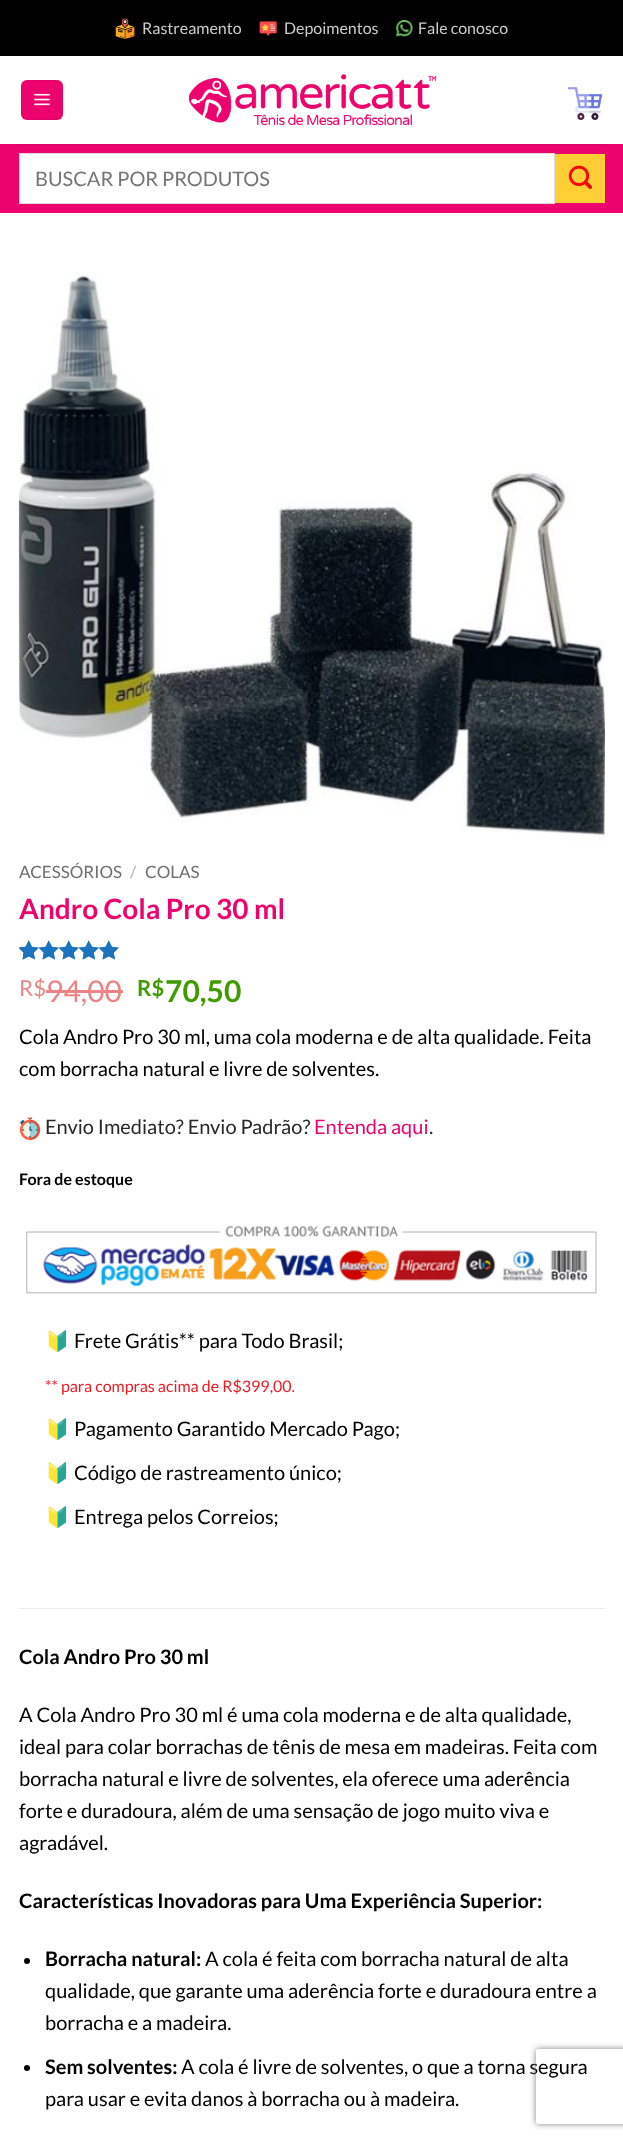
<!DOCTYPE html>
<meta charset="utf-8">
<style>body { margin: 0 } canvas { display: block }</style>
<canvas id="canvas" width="623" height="2141"></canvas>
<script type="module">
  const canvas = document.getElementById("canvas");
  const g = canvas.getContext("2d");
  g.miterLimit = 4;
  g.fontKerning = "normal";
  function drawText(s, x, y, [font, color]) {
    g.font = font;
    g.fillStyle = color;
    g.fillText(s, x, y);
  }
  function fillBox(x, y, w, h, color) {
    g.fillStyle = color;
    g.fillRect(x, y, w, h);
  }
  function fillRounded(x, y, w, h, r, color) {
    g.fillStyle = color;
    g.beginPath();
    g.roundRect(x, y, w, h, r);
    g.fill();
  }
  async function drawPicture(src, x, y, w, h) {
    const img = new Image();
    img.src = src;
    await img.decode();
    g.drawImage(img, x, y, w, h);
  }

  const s1 = ["16px Lato", "#CCCCCC"];
  const s2 = ["20px Lato", "#757575"];
  const s3 = ["17px Lato", "#6E6E6E"];
  const s4 = ["17px Lato", "#B2B2B2"];
  const s5 = ["bold 28px Lato", "#ED036E"];
  const s6 = ["22px Lato", "#EB8585"];
  const s7 = ["30px Lato", "#EB8585"];
  const s8 = ["bold 22px Lato", "#429A03"];
  const s9 = ["bold 30px Lato", "#429A03"];
  const s10 = ["20px Lato", "#000000"];
  const s11 = ["20px Lato", "#282828"];
  const s12 = ["20px Lato", "#ED036E"];
  const s13 = ["bold 16px Lato", "#000000"];
  const s14 = ["20px Noto Color Emoji", "#000000"];
  const s15 = ["16px Lato", "#ED1C24"];
  const s16 = ["bold 20px Lato", "#000000"];

  fillBox(0, 0, 623, 2141, "#FFFFFF");
  fillBox(0, 0, 623, 56, "#000000");
  await drawPicture("pic1.png", 115, 18, 20, 21);
  drawText("Rastreamento", 142, 34, s1);
  await drawPicture("pic2.png", 259, 21, 18, 15);
  drawText("Depoimentos", 284, 34, s1);
  await drawPicture("pic3.png", 396, 20, 17, 17);
  drawText("Fale conosco", 418, 34, s1);
  fillRounded(21, 80, 42, 40, 6, "#ED036E");
  g.strokeStyle = "rgba(0, 0, 0, 0.05)";
  g.strokeRect(21.5, 80.5, 41, 39);
  await drawPicture("pic4.png", 34, 93, 17, 13);
  await drawPicture("pic5.png", 188, 74, 249, 51);
  await drawPicture("pic6.png", 567, 85, 36, 35);
  fillBox(0, 144, 623, 69, "#ED036E");
  fillBox(19, 144, 586, 1, "#D50363");
  g.fillStyle = "#FFFFFF";
  g.beginPath();
  g.rect(19.5, 153.5, 535, 50);
  g.fill();
  g.strokeStyle = "#DDDDDD";
  g.stroke();
  drawText("BUSCAR POR PRODUTOS", 35, 186, s2);
  fillBox(555, 154, 50, 49, "#FFCF35");
  await drawPicture("pic7.png", 568, 165, 24, 24);
  await drawPicture("pic8.png", 18, 272, 587, 570);
  drawText("ACESSÓRIOS", 19, 878, s3);
  drawText("/", 130, 878, s4);
  drawText("COLAS", 145, 878, s3);
  drawText("Andro Cola Pro 30 ml", 19, 919, s5);
  await drawPicture("pic9.png", 19, 940, 100, 20);
  await drawPicture("pic10.png", 19, 940, 100, 20);
  await drawPicture("pic11.png", 19, 940, 12, 20);
  drawText("R$", 19, 996, s6);
  drawText("94,00", 46, 1002, s7);
  fillBox(46, 990, 77, 3, "#EB8585");
  drawText("R$", 137, 996, s8);
  drawText("70,50", 165, 1002, s9);
  drawText("Cola Andro Pro 30 ml, uma cola moderna e de alta qualidade. Feita", 19, 1044, s10);
  drawText("com borracha natural e livre de solventes.", 19, 1076, s10);
  await drawPicture("pic12.png", 19, 1117, 22, 23);
  drawText("Envio Imediato? Envio Padrão?", 45, 1134, s11);
  drawText("Entenda aqui", 314, 1134, s12);
  drawText(".", 429, 1134, s11);
  drawText("Fora de estoque", 19, 1185, s13);
  await drawPicture("pic13.png", 26, 1226, 571, 68);
  drawText("🔰", 45, 1348, s14);
  drawText("Frete Grátis** para Todo Brasil;", 74, 1348, s10);
  drawText("** para compras acima de R$399,00.", 45, 1392, s15);
  drawText("🔰", 45, 1436, s14);
  drawText("Pagamento Garantido Mercado Pago;", 74, 1436, s10);
  drawText("🔰", 45, 1480, s14);
  drawText("Código de rastreamento único;", 74, 1480, s10);
  drawText("🔰", 45, 1524, s14);
  drawText("Entrega pelos Correios;", 74, 1524, s10);
  fillBox(19, 1608, 586, 1, "#ECECEC");
  drawText("Cola Andro Pro 30 ml", 19, 1664, s16);
  drawText("A Cola Andro Pro 30 ml é uma cola moderna e de alta qualidade,", 19, 1722, s10);
  drawText("ideal para colar borrachas de tênis de mesa em madeiras. Feita com", 19, 1754, s10);
  drawText("borracha natural e livre de solventes, ela oferece uma aderência", 19, 1786, s10);
  drawText("forte e duradoura, além de uma sensação de jogo muito viva e", 19, 1818, s10);
  drawText("agradável.", 19, 1850, s10);
  drawText("Características Inovadoras para Uma Experiência Superior:", 19, 1908, s16);
  g.beginPath();
  g.arc(27, 1961, 3, 0, Math.PI * 2);
  g.fill();
  drawText("Borracha natural:", 45, 1966, s16);
  drawText("A cola é feita com borracha natural de alta", 205, 1966, s10);
  drawText("qualidade, que garante uma aderência forte e duradoura entre a", 45, 1998, s10);
  drawText("borracha e a madeira.", 45, 2030, s10);
  g.beginPath();
  g.arc(27, 2068, 3, 0, Math.PI * 2);
  g.fill();
  drawText("Sem solventes:", 45, 2074, s16);
  drawText("A cola é livre de solventes, o que a torna segura", 181, 2074, s10);
  drawText("para usar e evita danos à borracha ou à madeira.", 45, 2106, s10);
  g.save();
  g.beginPath();
  g.moveTo(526, 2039);
  g.lineTo(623, 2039);
  g.lineTo(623, 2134);
  g.lineTo(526, 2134);
  g.closePath();
  g.moveTo(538.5, 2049);
  g.lineTo(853.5, 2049);
  g.bezierCurveTo(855, 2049, 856, 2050, 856, 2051.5);
  g.lineTo(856, 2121.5);
  g.bezierCurveTo(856, 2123, 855, 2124, 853.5, 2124);
  g.lineTo(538.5, 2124);
  g.bezierCurveTo(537, 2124, 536, 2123, 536, 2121.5);
  g.lineTo(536, 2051.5);
  g.bezierCurveTo(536, 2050, 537, 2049, 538.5, 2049);
  g.closePath();
  g.clip("evenodd");
  g.fillStyle = "#808080";
  g.filter = "blur(3px)";
  g.beginPath();
  g.roundRect(536, 2049, 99, 75, 2.5);
  g.fill();
  g.filter = "none";
  g.restore();
</script>
